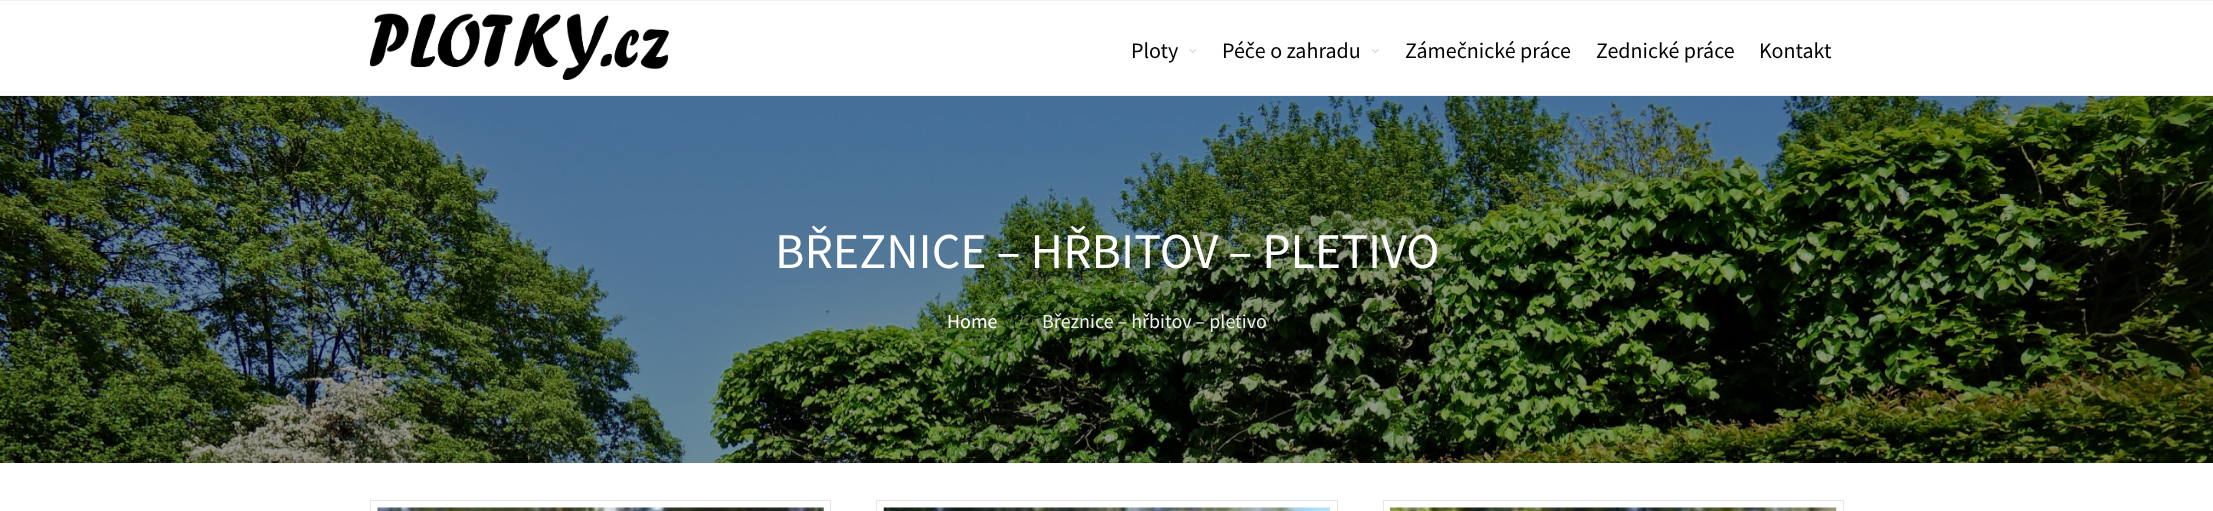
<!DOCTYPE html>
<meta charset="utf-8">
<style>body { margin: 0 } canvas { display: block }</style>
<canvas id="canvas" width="2213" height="511"></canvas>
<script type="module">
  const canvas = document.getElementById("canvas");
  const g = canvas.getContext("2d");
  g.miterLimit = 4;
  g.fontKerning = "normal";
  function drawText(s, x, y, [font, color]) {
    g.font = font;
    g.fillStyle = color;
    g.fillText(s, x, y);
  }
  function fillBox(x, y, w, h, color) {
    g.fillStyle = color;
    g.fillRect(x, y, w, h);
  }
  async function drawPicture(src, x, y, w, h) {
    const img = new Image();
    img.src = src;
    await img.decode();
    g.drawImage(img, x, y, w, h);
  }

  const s1 = ["22px Source Sans Pro", "#000000"];
  const s2 = ["50px Source Sans Pro", "#FFFFFF"];
  const s3 = ["20px Source Sans Pro", "#FFFFFF"];
  const s4 = ["bold 15px Liberation Serif", "#88967A"];
  const s5 = ["20px Source Sans Pro", "#EEEEEE"];

  fillBox(0, 0, 2213, 511, "#FFFFFF");
  await drawPicture("pic1.png", 0, 96, 2213, 367);
  fillBox(0, 0, 2213, 1, "#F0F0F0");
  fillBox(0, 95, 2213, 1, "#F0F0F0");
  await drawPicture("pic2.png", 370, 13, 299, 67);
  drawText("Ploty", 1131, 58, s1);
  await drawPicture("pic3.png", 1189, 49, 8, 4);
  drawText("Péče o zahradu", 1222, 58, s1);
  await drawPicture("pic4.png", 1372, 49, 7, 4);
  drawText("Zámečnické práce", 1405, 58, s1);
  drawText("Zednické práce", 1596, 58, s1);
  drawText("Kontakt", 1759, 58, s1);
  fillBox(0, 96, 2213, 367, "rgba(0, 0, 0, 0.4)");
  drawText("BŘEZNICE – HŘBITOV – PLETIVO", 775, 268, s2);
  drawText("Home", 947, 328, s3);
  drawText("/", 1019, 326, s4);
  drawText("Březnice – hřbitov – pletivo", 1042, 328, s5);
  g.strokeStyle = "#E6E6E6";
  g.strokeRect(370.5, 500.5, 460, 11);
  await drawPicture("pic5.png", 377, 507, 447, 4);
  g.strokeRect(876.5, 500.5, 461, 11);
  await drawPicture("pic6.png", 883, 507, 447, 4);
  g.strokeRect(1383.5, 500.5, 460, 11);
  await drawPicture("pic7.png", 1390, 507, 447, 4);
</script>
